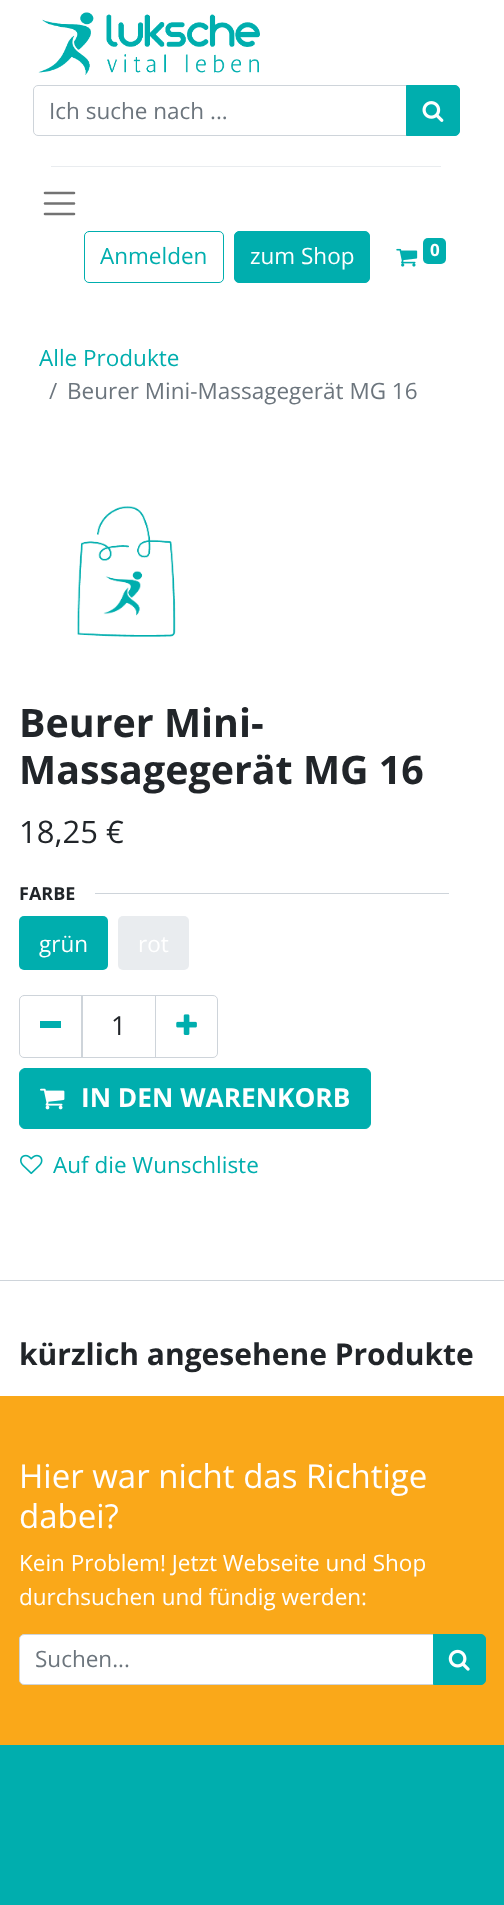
<!DOCTYPE html>
<meta charset="utf-8">
<style>body { margin: 0 } canvas { display: block }</style>
<canvas id="canvas" width="504" height="1905"></canvas>
<script type="module">
  const canvas = document.getElementById("canvas");
  const g = canvas.getContext("2d");
  g.miterLimit = 4;
  g.fontKerning = "normal";
  function drawText(s, x, y, [font, color]) {
    g.font = font;
    g.fillStyle = color;
    g.fillText(s, x, y);
  }
  function fillBox(x, y, w, h, color) {
    g.fillStyle = color;
    g.fillRect(x, y, w, h);
  }
  function fillRounded(x, y, w, h, r, color) {
    g.fillStyle = color;
    g.beginPath();
    g.roundRect(x, y, w, h, r);
    g.fill();
  }
  async function drawPicture(src, x, y, w, h) {
    const img = new Image();
    img.src = src;
    await img.decode();
    g.drawImage(img, x, y, w, h);
  }

  const s1 = ["22.5px Open Sans", "#6C757D"];
  const s2 = ["22.5px Open Sans", "#00AEAE"];
  const s3 = ["22.5px Open Sans", "#FFFFFF"];
  const s4 = ["bold 17px Open Sans", "#FFFFFF"];
  const s5 = ["bold 39.4px Open Sans", "#212529"];
  const s6 = ["31px Open Sans", "#212529"];
  const s7 = ["bold 18px Open Sans", "#212529"];
  const s8 = ["26.25px Open Sans", "#212529"];
  const s9 = ["bold 26.25px Open Sans", "#FFFFFF"];
  const s10 = ["bold 30px Open Sans", "#212529"];
  const s11 = ["33px Open Sans", "#FFFFFF"];

  fillBox(0, 0, 504, 1905, "#FFFFFF");
  await drawPicture("pic1.png", 38, 12, 222, 63);
  g.beginPath();
  g.roundRect(33.5, 85.5, 374, 50, [4.5, 0, 0, 4.5]);
  g.strokeStyle = "#CED4DA";
  g.stroke();
  drawText("Ich suche nach ...", 49, 119, s1);
  g.fillStyle = "#00AEAE";
  g.beginPath();
  g.roundRect(406.5, 85.5, 53, 50, [0, 4.5, 4.5, 0]);
  g.fill();
  g.strokeStyle = "#00AEAE";
  g.stroke();
  await drawPicture("pic2.png", 422, 101, 22, 21);
  fillBox(51, 166, 390, 1, "#E9ECEF");
  g.beginPath();
  g.moveTo(45, 193);
  g.lineTo(74, 193);
  g.moveTo(45, 203.5);
  g.lineTo(74, 203.5);
  g.moveTo(45, 214);
  g.lineTo(74, 214);
  g.strokeStyle = "#737373";
  g.lineWidth = 2.6;
  g.lineCap = "round";
  g.stroke();
  g.beginPath();
  g.roundRect(84.5, 231.5, 139, 51, 4.5);
  g.strokeStyle = "#00AEAE";
  g.lineWidth = 1;
  g.stroke();
  drawText("Anmelden", 100, 264, s2);
  g.beginPath();
  g.roundRect(234.5, 231.5, 135, 51, 4.5);
  g.fill();
  g.stroke();
  drawText("zum Shop", 250, 264, s3);
  await drawPicture("pic3.png", 396, 248, 22, 19);
  fillRounded(423, 238, 23, 26, 5, "#00AEAE");
  drawText("0", 430, 256, s4);
  drawText("Alle Produkte", 39, 366, s2);
  drawText("/", 49, 399, s1);
  drawText("Beurer Mini-Massagegerät MG 16", 67, 399, s1);
  await drawPicture("pic4.png", 77, 506, 99, 131);
  drawText("Beurer Mini-", 19, 737, s5);
  drawText("Massagegerät MG 16", 19, 784, s5);
  drawText("18,25 €", 19, 843, s6);
  drawText("FARBE", 19, 900, s7);
  fillBox(95, 893, 354, 1, "#CED4DA");
  fillRounded(19, 916, 89, 54, 5, "#00AEAE");
  drawText("grün", 39, 952, s3);
  fillRounded(118, 916, 71, 54, 5, "#E9ECEF");
  drawText("rot", 138, 952, s3);
  g.strokeStyle = "#CED4DA";
  g.strokeRect(81.5, 995.5, 74, 62);
  g.beginPath();
  g.roundRect(19.5, 995.5, 63, 62, [4.5, 0, 0, 4.5]);
  g.stroke();
  fillBox(40, 1021, 21, 7, "#00AEAE");
  drawText("1", 111, 1035, s8);
  g.beginPath();
  g.roundRect(155.5, 995.5, 62, 62, [0, 4.5, 4.5, 0]);
  g.stroke();
  await drawPicture("pic5.png", 176, 1014, 21, 21);
  g.fillStyle = "#00AEAE";
  g.beginPath();
  g.roundRect(19.5, 1068.5, 351, 60, 5.5);
  g.fill();
  g.strokeStyle = "#00AEAE";
  g.stroke();
  await drawPicture("pic6.png", 40, 1088, 25, 22);
  drawText("IN DEN WARENKORB", 81, 1107, s9);
  await drawPicture("pic7.png", 20, 1154, 23, 21);
  drawText("Auf die Wunschliste", 53, 1173, s2);
  fillBox(0, 1280, 504, 1, "#CED4DA");
  drawText("kürzlich angesehene Produkte", 19, 1365, s10);
  fillBox(0, 1396, 504, 349, "#FAA819");
  drawText("Hier war nicht das Richtige", 19, 1488, s11);
  drawText("dabei?", 19, 1528, s11);
  drawText("Kein Problem! Jetzt Webseite und Shop", 19, 1571, s3);
  drawText("durchsuchen und fündig werden:", 19, 1605, s3);
  g.beginPath();
  g.roundRect(19.5, 1634.5, 414, 50, [4.5, 0, 0, 4.5]);
  g.fill();
  g.strokeStyle = "#CED4DA";
  g.stroke();
  drawText("Suchen...", 35, 1667, s1);
  g.fillStyle = "#00AEAE";
  g.beginPath();
  g.roundRect(433.5, 1634.5, 52, 50, [0, 4.5, 4.5, 0]);
  g.fill();
  g.strokeStyle = "#00AEAE";
  g.stroke();
  await drawPicture("pic8.png", 448, 1649, 22, 22);
  fillBox(0, 1745, 504, 160, "#00AEAE");
</script>
